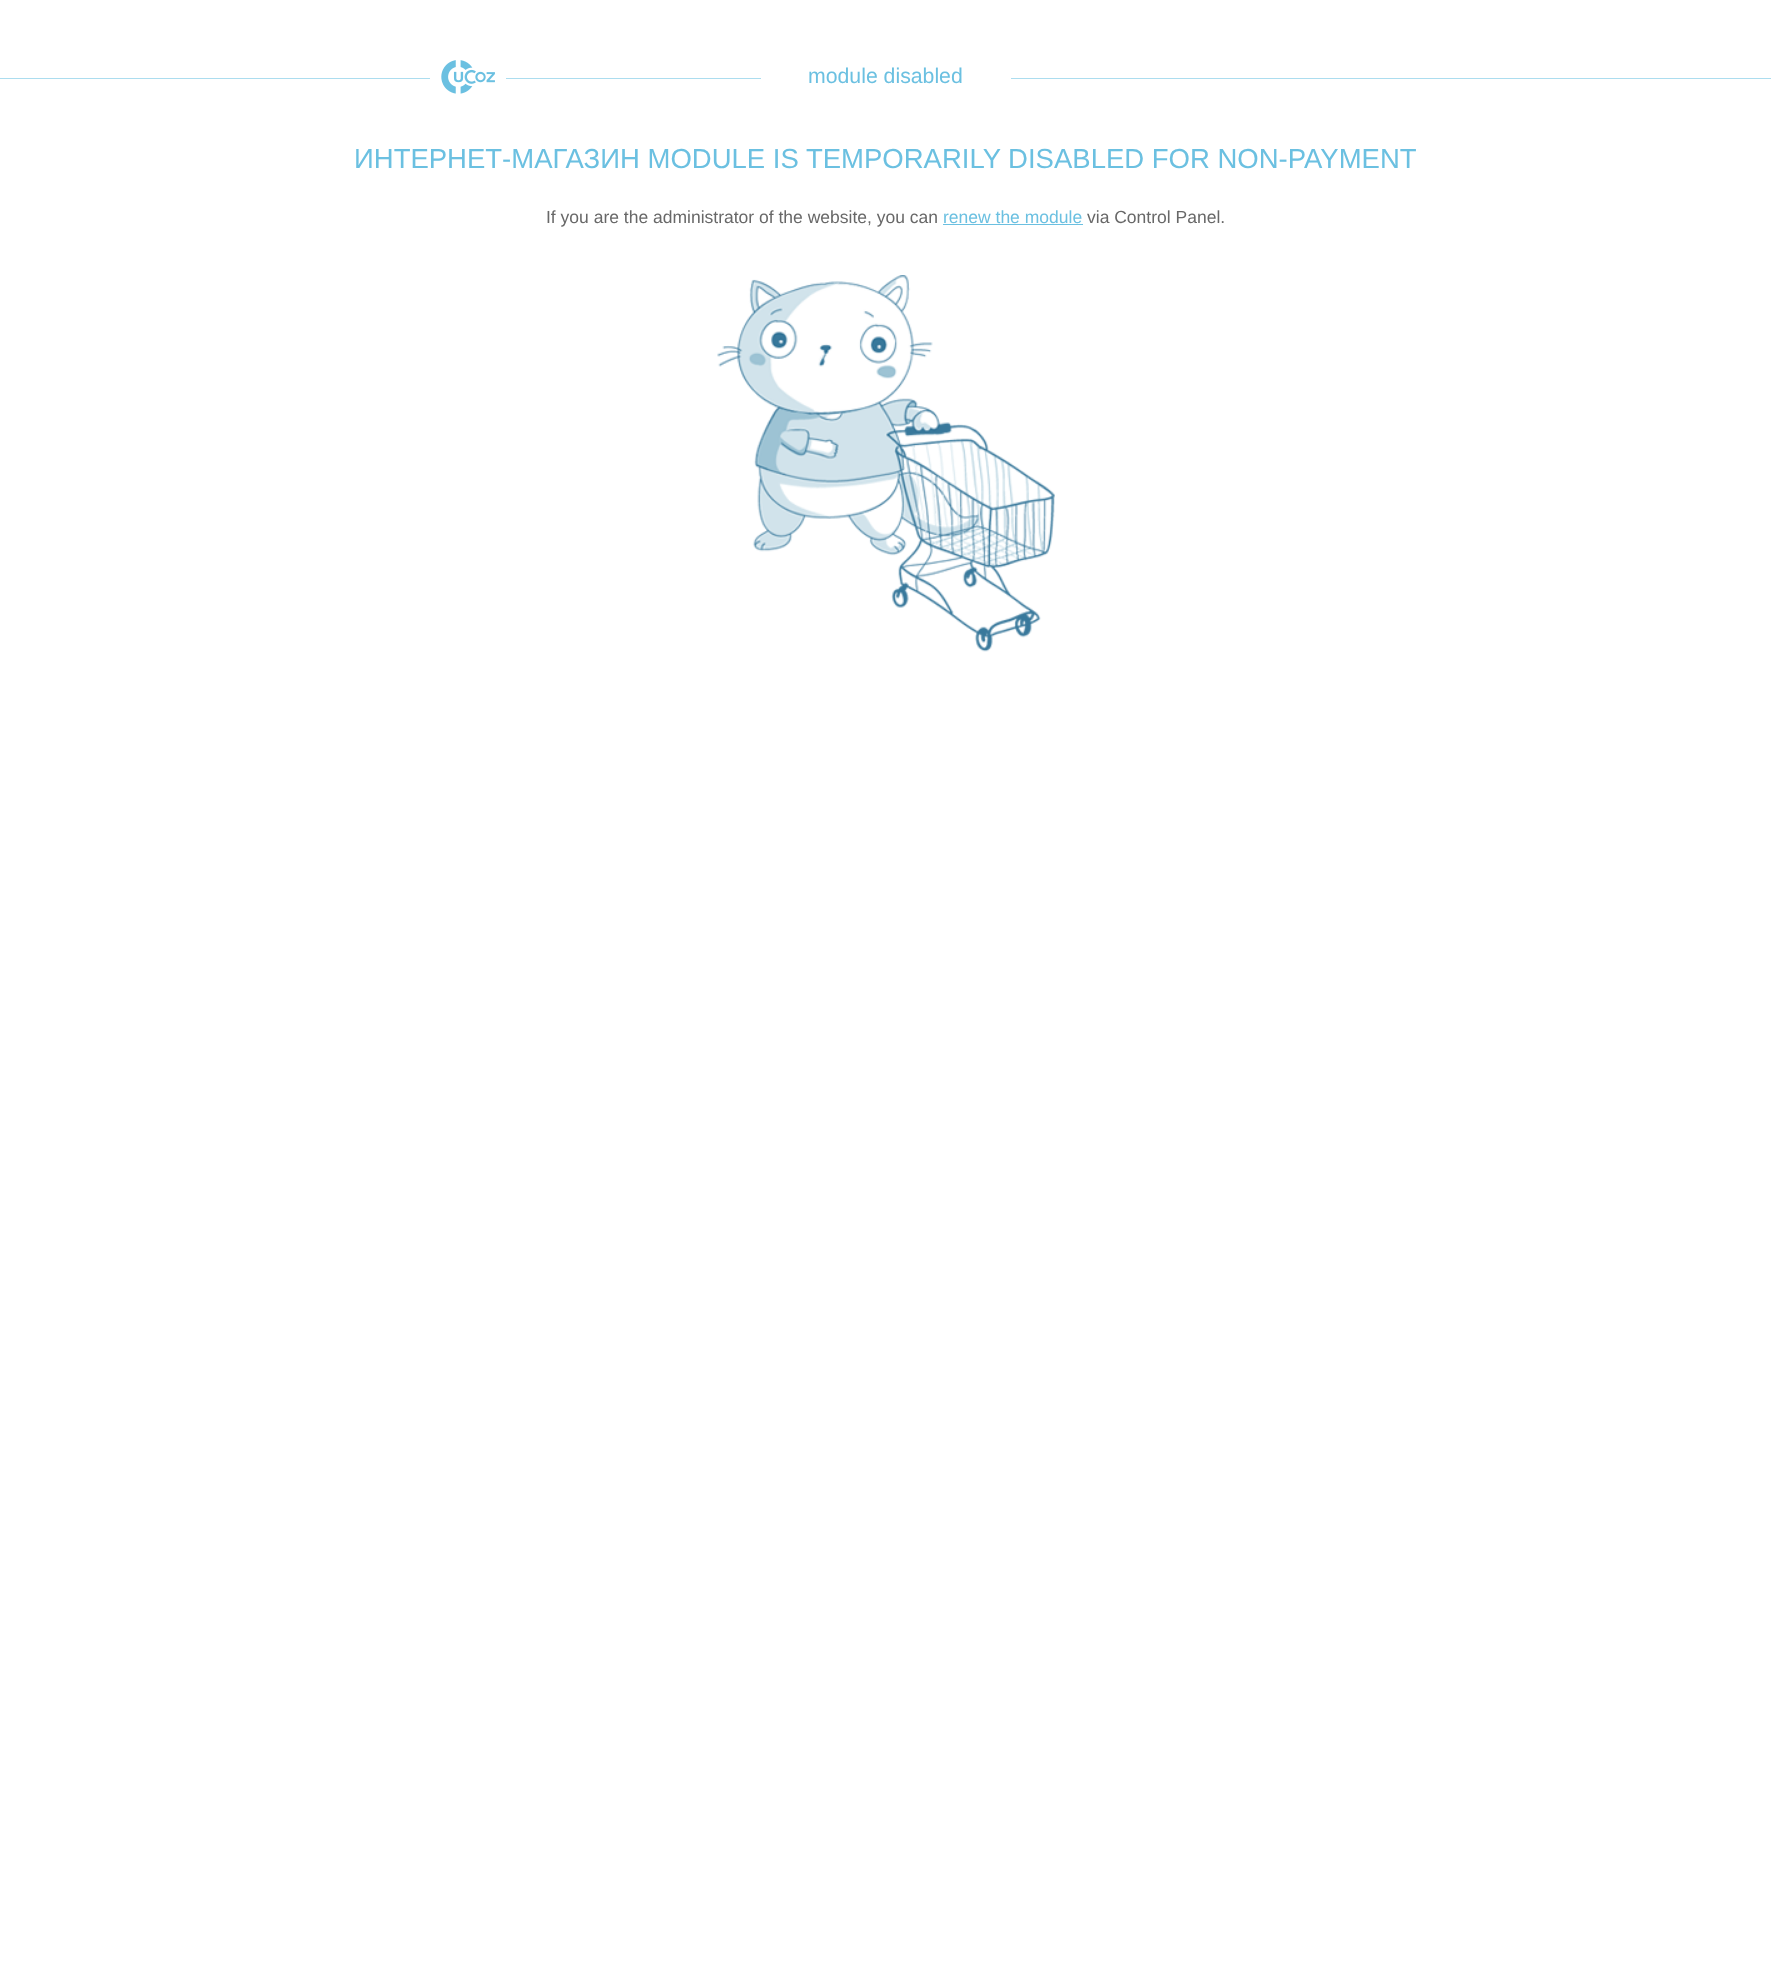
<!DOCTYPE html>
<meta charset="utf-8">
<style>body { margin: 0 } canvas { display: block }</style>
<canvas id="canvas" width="1771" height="1962"></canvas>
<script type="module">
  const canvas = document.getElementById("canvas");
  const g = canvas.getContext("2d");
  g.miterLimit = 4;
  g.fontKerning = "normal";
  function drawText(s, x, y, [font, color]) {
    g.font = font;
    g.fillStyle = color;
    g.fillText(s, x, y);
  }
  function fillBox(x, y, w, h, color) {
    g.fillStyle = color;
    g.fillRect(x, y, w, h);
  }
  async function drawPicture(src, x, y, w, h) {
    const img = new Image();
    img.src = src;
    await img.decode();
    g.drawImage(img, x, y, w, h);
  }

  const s1 = ["21.25px Liberation Sans", "#6BC0E1"];
  const s2 = ["27.5px Liberation Sans", "#6BC0E1"];
  const s3 = ["17.5px Liberation Sans", "#686868"];
  const s4 = ["17.5px Liberation Sans", "#6BC0E1"];

  fillBox(0, 0, 1771, 1962, "#FFFFFF");
  fillBox(0, 78, 1771, 1, "#ACDDEF");
  fillBox(430, 78, 76, 1, "#FFFFFF");
  await drawPicture("pic1.png", 441, 60, 54, 34);
  fillBox(761, 78, 250, 1, "#FFFFFF");
  drawText("module disabled", 808, 83, s1);
  await drawPicture("pic2.png", 717, 275, 338, 377);
  drawText("ИНТЕРНЕТ-МАГАЗИН MODULE IS TEMPORARILY DISABLED FOR NON-PAYMENT", 354, 168, s2);
  drawText("If you are the administrator of the website, you can", 546, 223, s3);
  drawText("renew the module", 943, 223, s4);
  fillBox(943, 224, 140, 1, "#6BC0E1");
  drawText("via Control Panel.", 1087, 223, s3);
</script>
